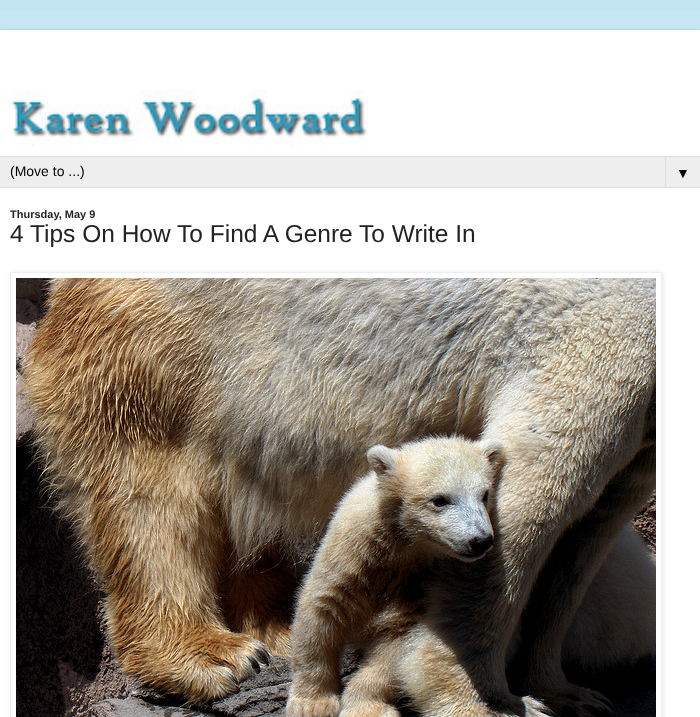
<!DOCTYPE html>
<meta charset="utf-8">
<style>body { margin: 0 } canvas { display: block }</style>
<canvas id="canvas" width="700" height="717"></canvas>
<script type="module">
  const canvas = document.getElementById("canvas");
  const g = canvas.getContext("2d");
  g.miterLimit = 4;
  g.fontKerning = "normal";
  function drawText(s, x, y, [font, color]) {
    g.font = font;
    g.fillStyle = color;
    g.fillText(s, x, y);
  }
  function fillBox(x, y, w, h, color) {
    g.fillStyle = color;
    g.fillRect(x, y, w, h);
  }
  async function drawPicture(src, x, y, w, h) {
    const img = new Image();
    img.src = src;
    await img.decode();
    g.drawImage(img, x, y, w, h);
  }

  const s1 = ["14px Liberation Sans", "#000000"];
  const s2 = ["bold 11px Liberation Sans", "#222222"];
  const s3 = ["24.5px Liberation Sans", "#222222"];

  fillBox(0, 0, 700, 717, "#C2E4F2");
  await drawPicture("pic1.png", 0, 10, 700, 20);
  g.fillStyle = "rgba(0, 0, 0, 0.15)";
  g.filter = "blur(1.5px)";
  g.beginPath();
  g.rect(0, 30, 700, 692);
  g.fill();
  g.filter = "none";
  fillBox(0, 30, 700, 687, "#FFFFFF");
  await drawPicture("pic2.png", 1, 90, 367, 56);
  fillBox(0, 157, 700, 30, "#EEEEEE");
  fillBox(0, 156, 700, 1, "#DDDDDD");
  fillBox(0, 187, 700, 1, "#DDDDDD");
  drawText("(Move to ...)", 10, 176, s1);
  fillBox(665, 156, 1, 32, "#DDDDDD");
  drawText("▼", 676, 178, s1);
  drawText("Thursday, May 9", 10, 218, s2);
  drawText("4 Tips On How To Find A Genre To Write In", 10, 242, s3);
  g.save();
  g.beginPath();
  g.moveTo(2, 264);
  g.lineTo(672, 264);
  g.lineTo(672, 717);
  g.lineTo(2, 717);
  g.closePath();
  g.moveTo(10, 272);
  g.lineTo(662, 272);
  g.lineTo(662, 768);
  g.lineTo(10, 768);
  g.closePath();
  g.clip("evenodd");
  g.fillStyle = "rgba(0, 0, 0, 0.1)";
  g.filter = "blur(2.5px)";
  g.beginPath();
  g.rect(11, 273, 652, 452);
  g.fill();
  g.filter = "none";
  g.restore();
  g.strokeStyle = "#EEEEEE";
  g.strokeRect(10.5, 272.5, 651, 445);
  await drawPicture("pic3.png", 16, 278, 640, 439);
</script>
